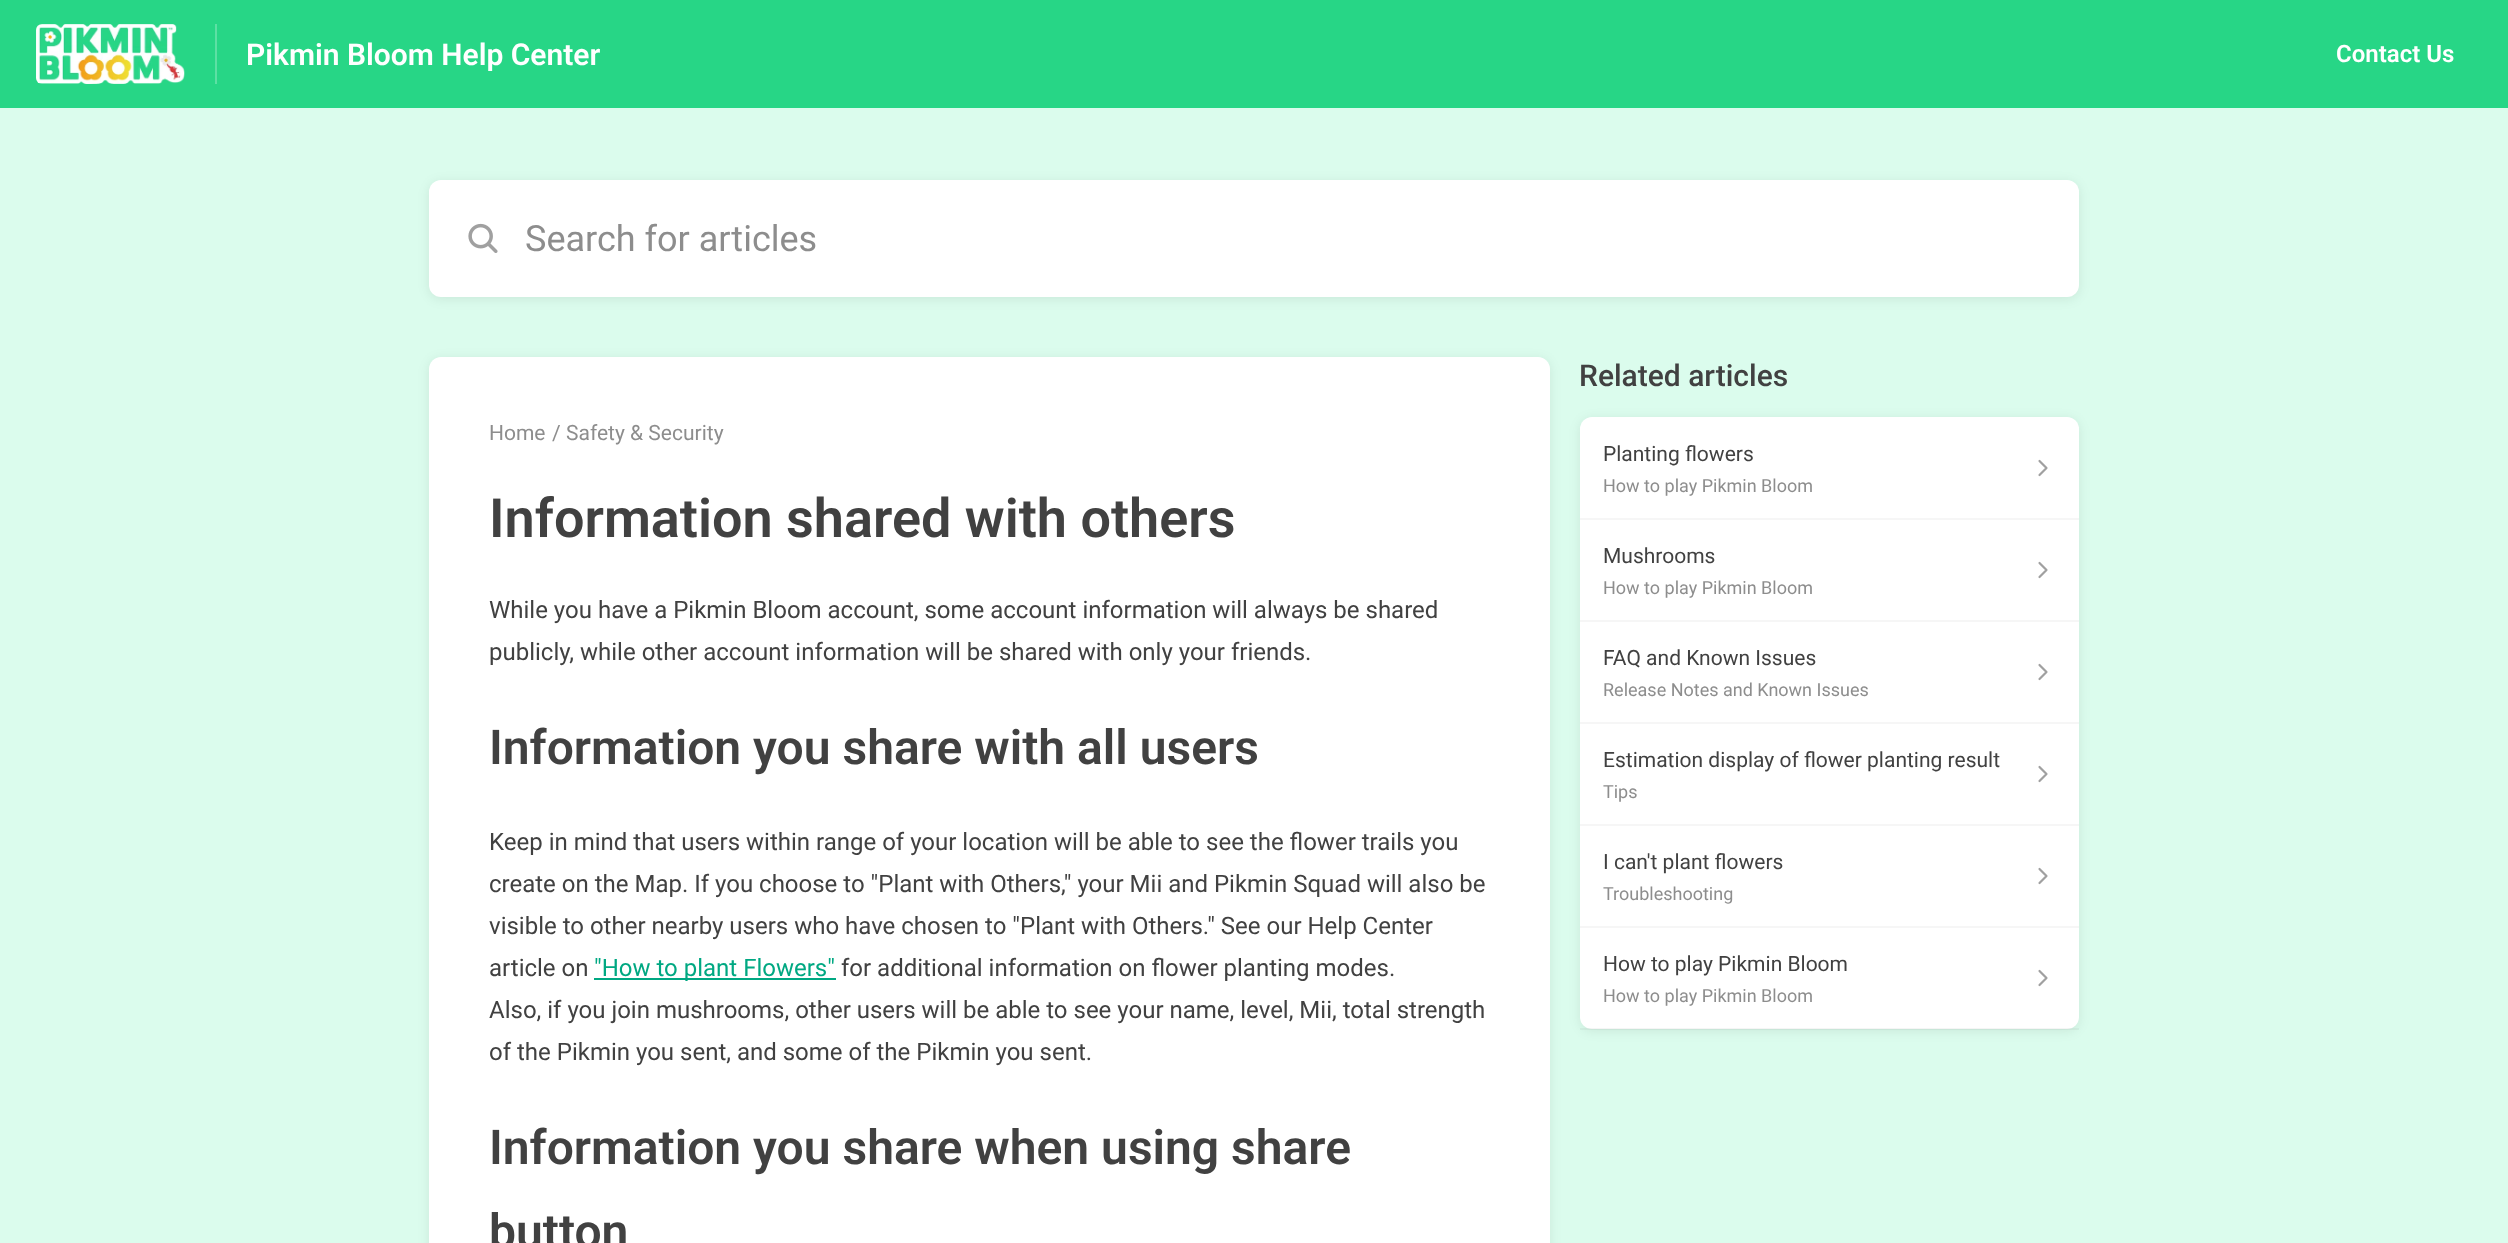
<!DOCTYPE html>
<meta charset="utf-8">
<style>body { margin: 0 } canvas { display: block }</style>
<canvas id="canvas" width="2508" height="1243"></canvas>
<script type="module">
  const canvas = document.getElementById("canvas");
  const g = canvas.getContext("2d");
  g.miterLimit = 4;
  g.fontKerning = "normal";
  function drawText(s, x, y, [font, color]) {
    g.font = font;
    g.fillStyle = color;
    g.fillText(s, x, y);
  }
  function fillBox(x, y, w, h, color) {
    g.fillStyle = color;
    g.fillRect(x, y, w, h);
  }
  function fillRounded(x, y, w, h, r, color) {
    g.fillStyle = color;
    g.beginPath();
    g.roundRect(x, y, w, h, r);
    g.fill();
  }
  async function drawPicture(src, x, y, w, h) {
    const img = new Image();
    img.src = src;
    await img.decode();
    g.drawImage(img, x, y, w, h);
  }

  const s1 = ["600 30px Roboto", "#FFFFFF"];
  const s2 = ["600 24px Roboto", "#FFFFFF"];
  const s3 = ["36px Roboto", "#8D8D8D"];
  const s4 = ["21px Roboto", "#8D8D8D"];
  const s5 = ["600 54px Roboto", "#414141"];
  const s6 = ["24px Roboto", "#414141"];
  const s7 = ["600 48px Roboto", "#414141"];
  const s8 = ["24px Roboto", "#00A882"];
  const s9 = ["500 30px Roboto", "#414141"];
  const s10 = ["21px Roboto", "#414141"];
  const s11 = ["18px Roboto", "#8D8D8D"];

  fillBox(0, 0, 2508, 1243, "#DBFCED");
  fillBox(0, 0, 2508, 108, "#27D686");
  fillBox(215, 24, 2, 60, "#5DE0A4");
  await drawPicture("pic1.png", 36, 24, 149, 60);
  g.save();
  g.beginPath();
  g.rect(246, 36, 354, 36);
  g.clip();
  drawText("Pikmin Bloom Help Center", 246, 65, s1);
  g.restore();
  drawText("Contact Us", 2336, 62, s2);
  g.fillStyle = "rgba(0, 0, 0, 0.08)";
  g.filter = "blur(6px)";
  g.beginPath();
  g.roundRect(429, 182, 1650, 117, 12);
  g.fill();
  g.filter = "none";
  fillRounded(429, 180, 1650, 117, 12, "#FFFFFF");
  await drawPicture("pic2.png", 468, 223, 30, 30);
  drawText("Search for articles", 525, 251, s3);
  g.fillStyle = "rgba(0, 0, 0, 0.08)";
  g.filter = "blur(6px)";
  g.beginPath();
  g.roundRect(429, 359, 1121, 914, 12);
  g.fill();
  g.filter = "none";
  g.fillStyle = "#FFFFFF";
  g.beginPath();
  g.moveTo(441, 357);
  g.lineTo(1538, 357);
  g.bezierCurveTo(1544.5, 357, 1550, 362.5, 1550, 369);
  g.lineTo(1550, 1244);
  g.lineTo(429, 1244);
  g.lineTo(429, 369);
  g.bezierCurveTo(429, 362.5, 434.5, 357, 441, 357);
  g.closePath();
  g.fill();
  drawText("Home", 489, 440, s4);
  drawText("/", 552, 440, s4);
  drawText("Safety & Security", 566, 440, s4);
  drawText("Information shared with others", 489, 537, s5);
  drawText("While you have a Pikmin Bloom account, some account information will always be shared", 489, 618, s6);
  drawText("publicly, while other account information will be shared with only your friends.", 489, 660, s6);
  drawText("Information you share with all users", 489, 764, s7);
  drawText("Keep in mind that users within range of your location will be able to see the flower trails you", 489, 850, s6);
  drawText("create on the Map. If you choose to \"Plant with Others,\" your Mii and Pikmin Squad will also be", 489, 892, s6);
  drawText("visible to other nearby users who have chosen to \"Plant with Others.\" See our Help Center", 489, 934, s6);
  drawText("article on", 489, 976, s6);
  fillBox(594, 978, 242, 2, "#00A882");
  drawText("\"How to plant Flowers\"", 594, 976, s8);
  drawText("for additional information on flower planting modes.", 841, 976, s6);
  drawText("Also, if you join mushrooms, other users will be able to see your name, level, Mii, total strength", 489, 1018, s6);
  drawText("of the Pikmin you sent, and some of the Pikmin you sent.", 489, 1060, s6);
  drawText("Information you share when using share", 489, 1164, s7);
  drawText("button", 489, 1248, s7);
  drawText("Related articles", 1579, 386, s9);
  g.fillStyle = "rgba(0, 0, 0, 0.08)";
  g.filter = "blur(6px)";
  g.beginPath();
  g.roundRect(1580, 419, 499, 612, 12);
  g.fill();
  g.filter = "none";
  fillRounded(1580, 417, 499, 612, 12, "#FFFFFF");
  fillBox(1580, 518, 499, 2, "#F6F6F6");
  drawText("Planting flowers", 1603, 461, s10);
  drawText("How to play Pikmin Bloom", 1603, 492, s11);
  g.beginPath();
  g.moveTo(2039.5, 461);
  g.lineTo(2046.5, 468);
  g.lineTo(2039.5, 475);
  g.strokeStyle = "#A0A0A0";
  g.lineWidth = 2.2;
  g.lineCap = "round";
  g.lineJoin = "round";
  g.stroke();
  fillBox(1580, 620, 499, 2, "#F6F6F6");
  drawText("Mushrooms", 1603, 563, s10);
  drawText("How to play Pikmin Bloom", 1603, 594, s11);
  g.beginPath();
  g.moveTo(2039.5, 563);
  g.lineTo(2046.5, 570);
  g.lineTo(2039.5, 577);
  g.stroke();
  fillBox(1580, 722, 499, 2, "#F6F6F6");
  drawText("FAQ and Known Issues", 1603, 665, s10);
  drawText("Release Notes and Known Issues", 1603, 696, s11);
  g.beginPath();
  g.moveTo(2039.5, 665);
  g.lineTo(2046.5, 672);
  g.lineTo(2039.5, 679);
  g.stroke();
  fillBox(1580, 824, 499, 2, "#F6F6F6");
  drawText("Estimation display of flower planting result", 1603, 767, s10);
  drawText("Tips", 1603, 798, s11);
  g.beginPath();
  g.moveTo(2039.5, 767);
  g.lineTo(2046.5, 774);
  g.lineTo(2039.5, 781);
  g.stroke();
  fillBox(1580, 926, 499, 2, "#F6F6F6");
  drawText("I can't plant flowers", 1603, 869, s10);
  drawText("Troubleshooting", 1603, 900, s11);
  g.beginPath();
  g.moveTo(2039.5, 869);
  g.lineTo(2046.5, 876);
  g.lineTo(2039.5, 883);
  g.stroke();
  fillBox(1580, 1028, 499, 2, "rgba(65, 65, 65, 0.05)");
  drawText("How to play Pikmin Bloom", 1603, 971, s10);
  drawText("How to play Pikmin Bloom", 1603, 1002, s11);
  g.beginPath();
  g.moveTo(2039.5, 971);
  g.lineTo(2046.5, 978);
  g.lineTo(2039.5, 985);
  g.stroke();
</script>
